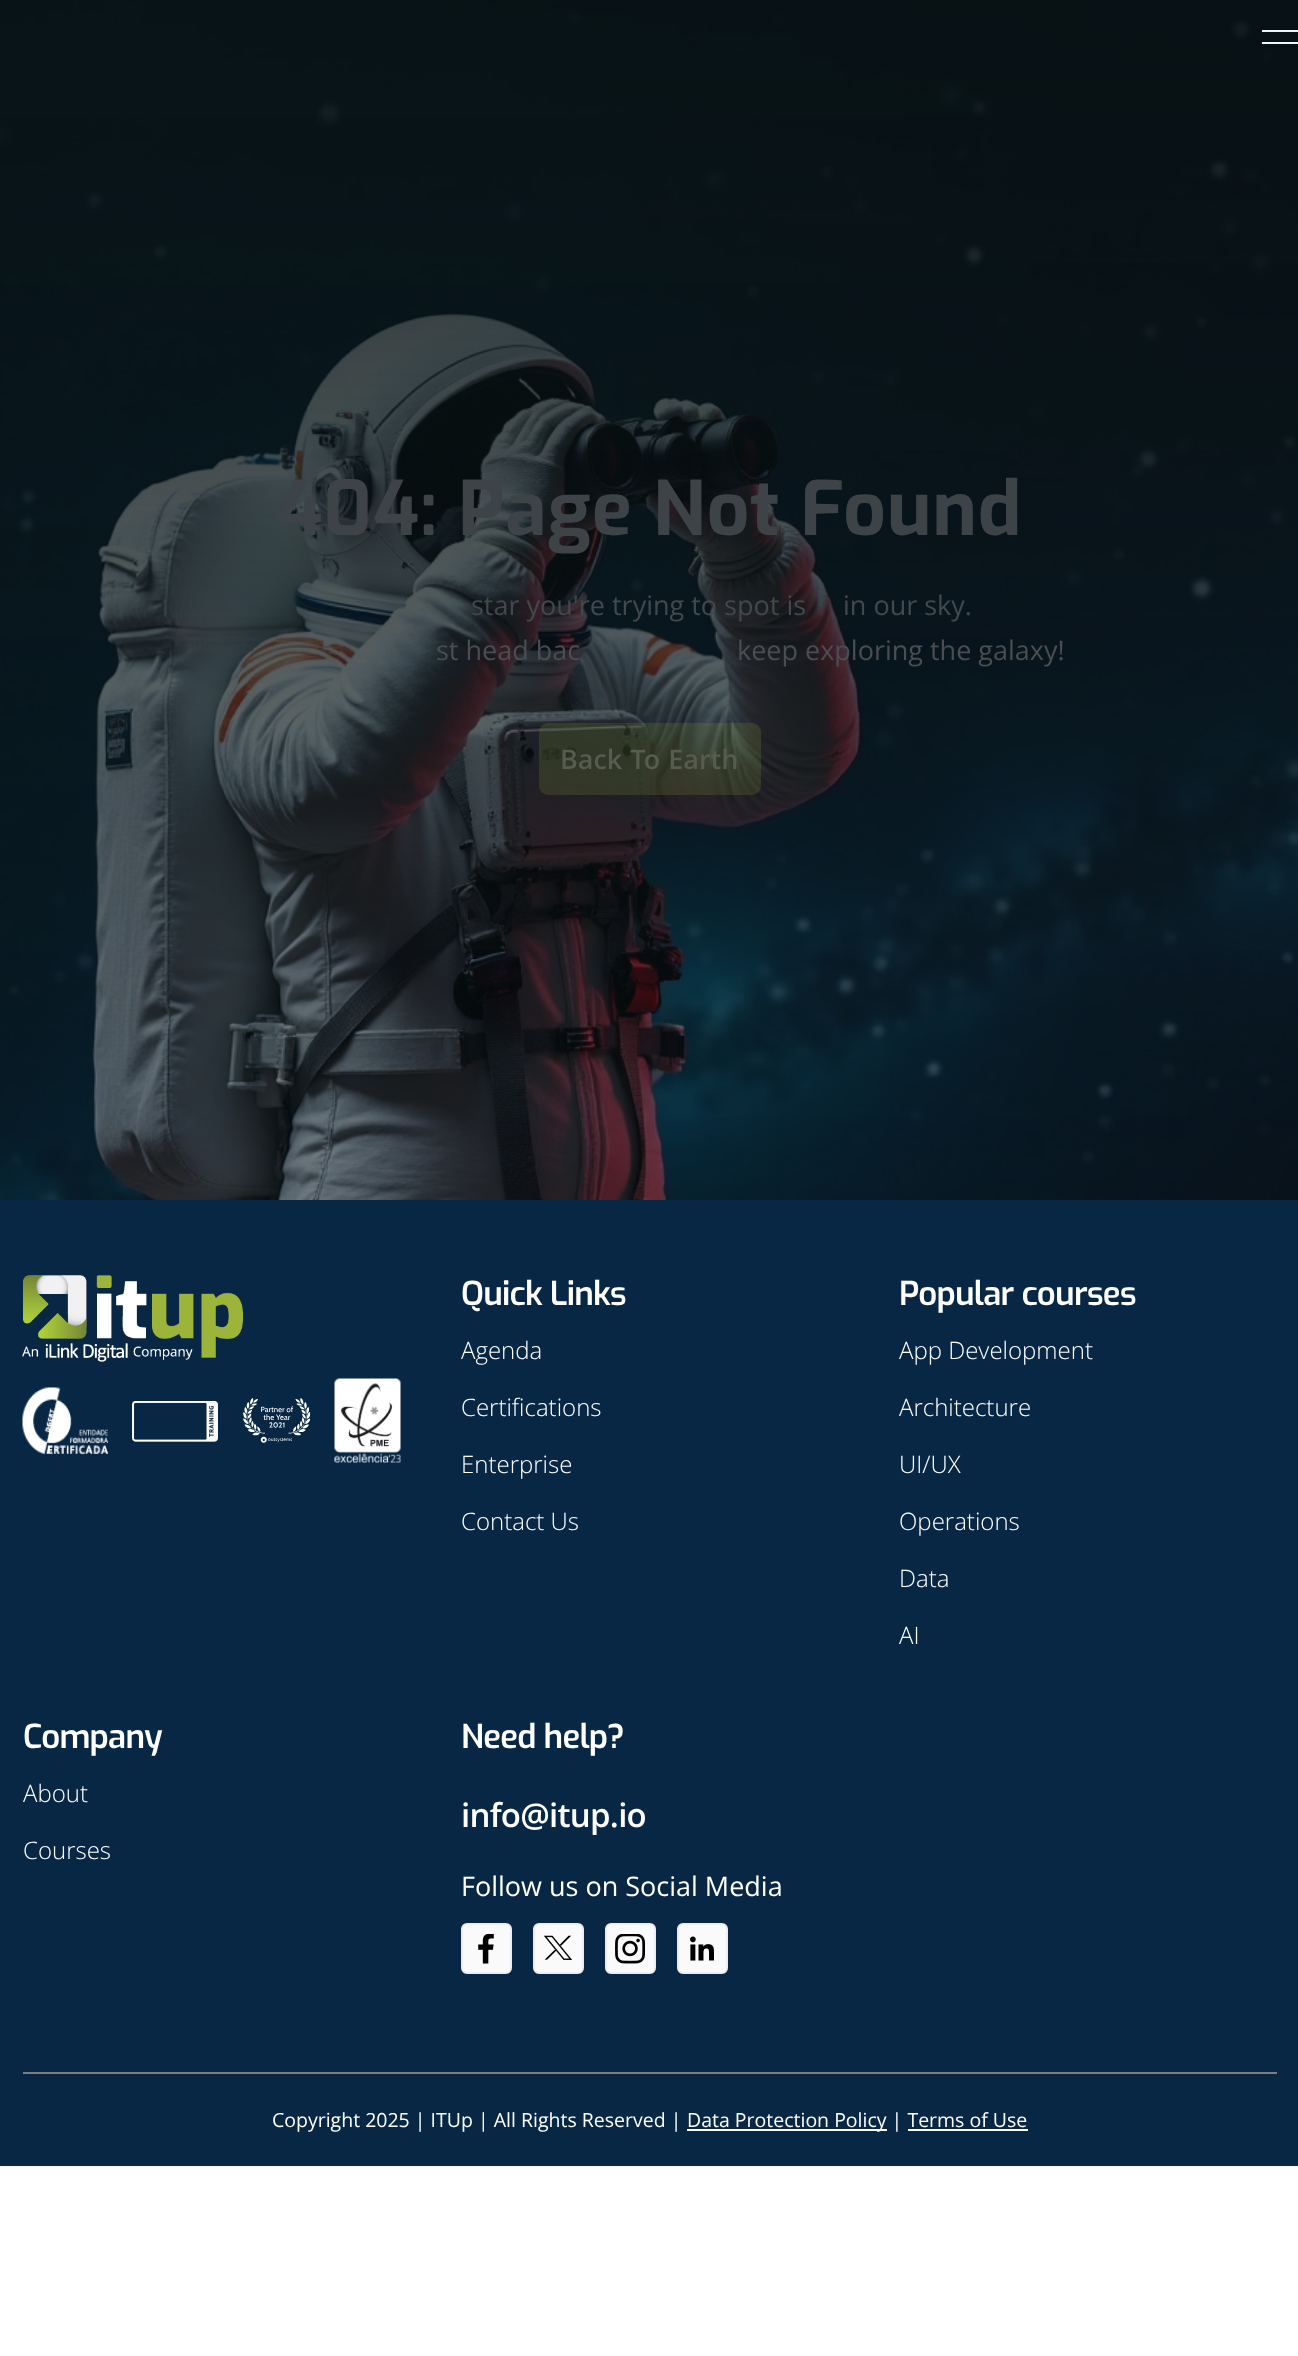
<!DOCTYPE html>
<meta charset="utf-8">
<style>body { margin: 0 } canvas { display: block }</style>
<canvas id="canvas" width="1298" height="2356"></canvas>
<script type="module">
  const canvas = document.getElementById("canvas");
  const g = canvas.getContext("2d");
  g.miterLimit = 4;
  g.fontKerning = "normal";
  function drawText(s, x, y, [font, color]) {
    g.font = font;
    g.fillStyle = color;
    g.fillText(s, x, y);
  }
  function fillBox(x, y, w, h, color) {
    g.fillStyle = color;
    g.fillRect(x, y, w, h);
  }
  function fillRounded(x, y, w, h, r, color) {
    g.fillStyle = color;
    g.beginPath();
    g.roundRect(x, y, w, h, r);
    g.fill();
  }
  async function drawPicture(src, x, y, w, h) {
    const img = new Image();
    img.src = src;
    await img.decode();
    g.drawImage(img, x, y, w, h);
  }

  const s1 = ["bold 75px Exo", "#3D4347"];
  const s2 = ["27px Open Sans", "#42494E"];
  const s3 = ["27px Open Sans", "#4A4D51"];
  const s4 = ["600 27px 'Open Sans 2'", "#575C4F"];
  const s5 = ["600 33px Exo", "#FFFFFF"];
  const s6 = ["300 24px Open Sans", "#FFFFFF"];
  const s7 = ["600 33px Open Sans", "#FFFFFF"];
  const s8 = ["27px Open Sans", "#FFFFFF"];
  const s9 = ["19.5px Open Sans", "#FFFFFF"];

  fillBox(0, 0, 1298, 2356, "#FFFFFF");
  await drawPicture("pic1.png", 0, 0, 1298, 1200);
  fillBox(1262, 30, 36, 2, "#EFF6F8");
  fillBox(1262, 42, 36, 2, "#EFF6F8");
  g.letterSpacing = "0.75px";
  drawText("404: Page Not Found", 276, 535, s1);
  g.letterSpacing = "0px";
  drawText("star you're trying to spot is", 471, 615, s2);
  drawText("in our sky.", 843, 615, s2);
  drawText("st head bac", 436, 660, s3);
  drawText("keep exploring the galaxy!", 737, 660, s3);
  fillRounded(539, 723, 222, 72, 9, "rgba(157, 179, 59, 0.17)");
  g.wordSpacing = "1px";
  drawText("Back To Earth", 560, 769, s4);
  fillBox(0, 1200, 1298, 966, "#082745");
  await drawPicture("pic2.png", 22, 1275, 221, 87);
  await drawPicture("pic3.png", 22, 1387, 86, 68);
  await drawPicture("pic4.png", 132, 1401, 86, 41);
  await drawPicture("pic5.png", 243, 1398, 68, 45);
  await drawPicture("pic6.png", 334, 1378, 67, 85);
  g.letterSpacing = "-0.75px";
  g.wordSpacing = "0px";
  drawText("Quick Links", 461, 1305, s5);
  g.letterSpacing = "0px";
  drawText("Agenda", 461, 1359, s6);
  drawText("Certifications", 461, 1416, s6);
  drawText("Enterprise", 461, 1473, s6);
  drawText("Contact Us", 461, 1530, s6);
  g.letterSpacing = "-0.75px";
  drawText("Popular courses", 899, 1305, s5);
  g.letterSpacing = "0px";
  drawText("App Development", 899, 1359, s6);
  drawText("Architecture", 899, 1416, s6);
  drawText("UI/UX", 899, 1473, s6);
  drawText("Operations", 899, 1530, s6);
  drawText("Data", 899, 1587, s6);
  drawText("AI", 899, 1644, s6);
  g.letterSpacing = "-0.75px";
  drawText("Company", 23, 1748, s5);
  g.letterSpacing = "0px";
  drawText("About", 23, 1802, s6);
  drawText("Courses", 23, 1859, s6);
  g.letterSpacing = "-0.75px";
  drawText("Need help?", 461, 1748, s5);
  drawText("info@itup.io", 461, 1827, s7);
  g.letterSpacing = "0px";
  drawText("Follow us on Social Media", 461, 1896, s8);
  g.fillStyle = "#FAFAFA";
  g.beginPath();
  g.roundRect(462, 1924, 49, 49, 5);
  g.fill();
  g.strokeStyle = "#ECECF4";
  g.lineWidth = 2;
  g.stroke();
  await drawPicture("pic7.png", 478, 1934, 16, 30);
  g.beginPath();
  g.roundRect(534, 1924, 49, 49, 5);
  g.fill();
  g.stroke();
  await drawPicture("pic8.png", 543, 1935, 30, 25);
  g.beginPath();
  g.roundRect(606, 1924, 49, 49, 5);
  g.fill();
  g.stroke();
  await drawPicture("pic9.png", 615, 1934, 30, 30);
  g.beginPath();
  g.roundRect(678, 1924, 49, 49, 5);
  g.fill();
  g.stroke();
  await drawPicture("pic10.png", 690, 1936, 24, 25);
  fillBox(23, 2072, 1254, 2, "#7B7C7D");
  drawText("Copyright 2025 | ITUp | All Rights Reserved |", 272, 2127, s9);
  fillBox(687, 2129, 200, 2, "#FFFFFF");
  drawText("Data Protection Policy | Terms of Use", 687, 2127, s9);
  fillBox(908, 2129, 120, 2, "#FFFFFF");
</script>
